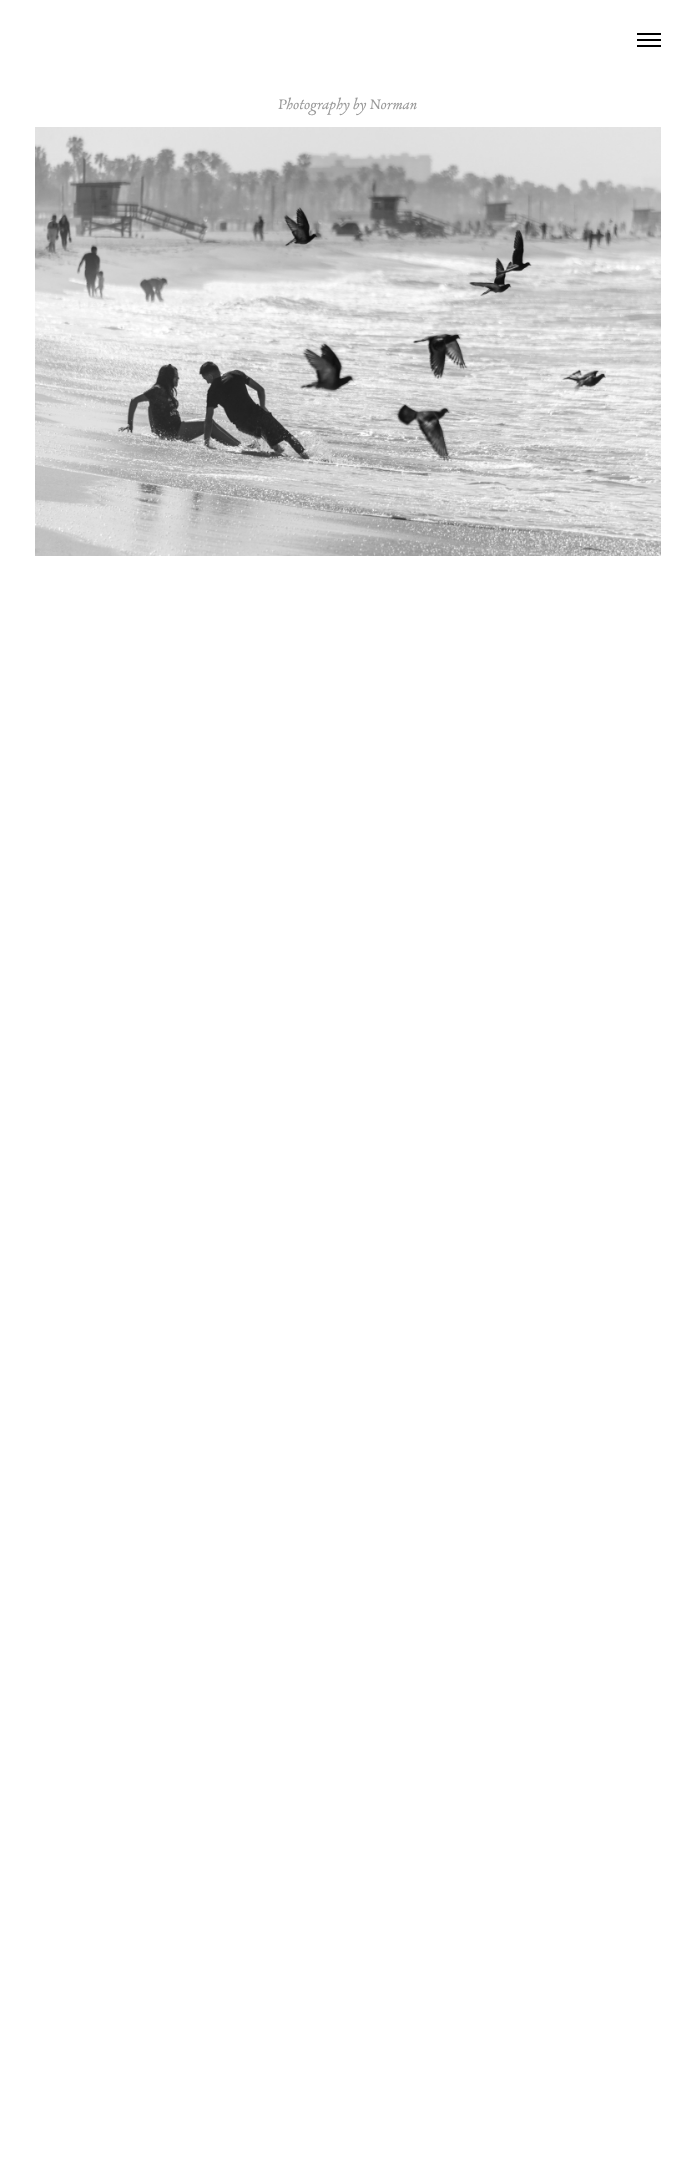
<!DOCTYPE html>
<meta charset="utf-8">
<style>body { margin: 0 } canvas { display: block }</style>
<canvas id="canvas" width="696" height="2157"></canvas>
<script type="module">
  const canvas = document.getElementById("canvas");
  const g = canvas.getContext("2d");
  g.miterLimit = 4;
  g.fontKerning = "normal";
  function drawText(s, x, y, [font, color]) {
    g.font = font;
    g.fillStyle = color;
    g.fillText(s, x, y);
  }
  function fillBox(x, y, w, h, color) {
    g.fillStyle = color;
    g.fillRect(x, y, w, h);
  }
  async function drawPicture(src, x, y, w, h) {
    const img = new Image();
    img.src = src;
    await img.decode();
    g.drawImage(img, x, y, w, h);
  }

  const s1 = ["18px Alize", "#999999"];

  fillBox(0, 0, 696, 2157, "#FFFFFF");
  fillBox(637, 33, 24, 2, "#000000");
  fillBox(637, 39, 24, 2, "#000000");
  fillBox(637, 45, 24, 2, "#000000");
  drawText("Photography by Norman", 278, 109, s1);
  await drawPicture("pic1.png", 35, 127, 626, 429);
</script>
